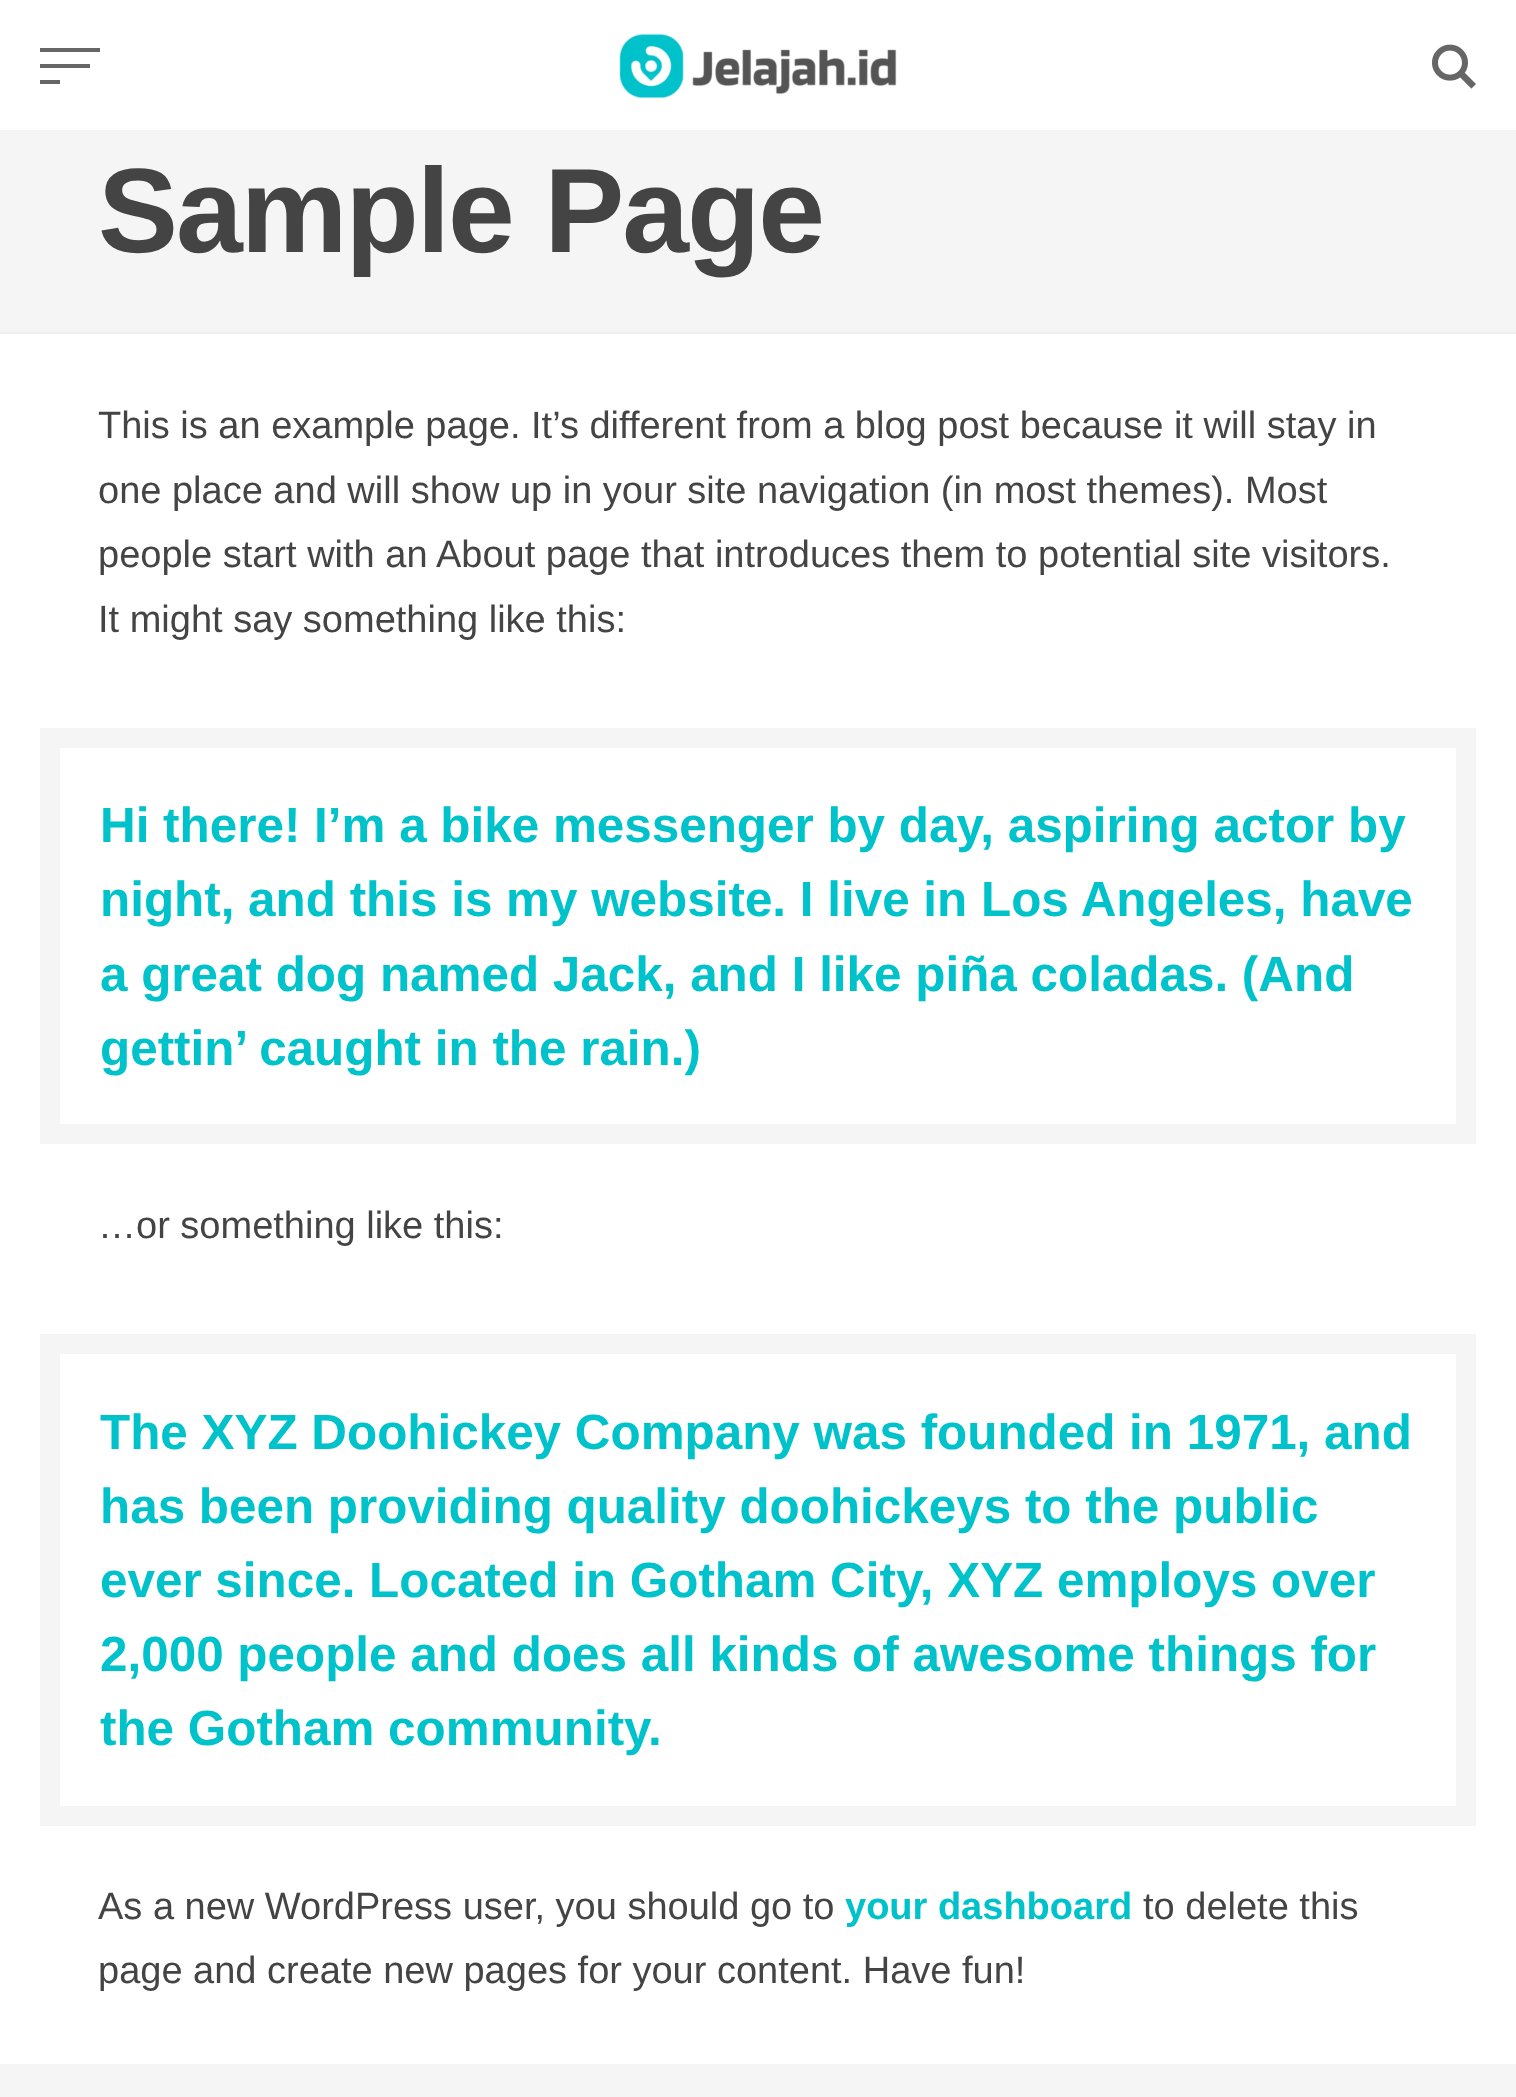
<!DOCTYPE html>
<meta charset="utf-8">
<style>body { margin: 0 } canvas { display: block }</style>
<canvas id="canvas" width="1516" height="2097"></canvas>
<script type="module">
  const canvas = document.getElementById("canvas");
  const g = canvas.getContext("2d");
  g.miterLimit = 4;
  g.fontKerning = "normal";
  function drawText(s, x, y, [font, color]) {
    g.font = font;
    g.fillStyle = color;
    g.fillText(s, x, y);
  }
  function fillBox(x, y, w, h, color) {
    g.fillStyle = color;
    g.fillRect(x, y, w, h);
  }
  async function drawPicture(src, x, y, w, h) {
    const img = new Image();
    img.src = src;
    await img.decode();
    g.drawImage(img, x, y, w, h);
  }

  const s1 = ["bold 120px Liberation Sans", "#444444"];
  const s2 = ["38px Liberation Sans", "#444444"];
  const s3 = ["bold 49.4px Liberation Sans", "#00C2CB"];
  const s4 = ["bold 38px Liberation Sans", "#00C2CB"];

  fillBox(0, 0, 1516, 2097, "#FFFFFF");
  fillBox(40, 48, 60, 4, "#666666");
  fillBox(40, 64, 50, 4, "#666666");
  fillBox(40, 80, 20, 4, "#666666");
  await drawPicture("pic1.png", 619, 33, 278, 66);
  await drawPicture("pic2.png", 1432, 44, 44, 45);
  fillBox(0, 130, 1516, 202, "#F5F5F5");
  fillBox(0, 332, 1516, 2, "#EEEEEE");
  g.letterSpacing = "-2px";
  drawText("Sample Page", 98, 252, s1);
  g.letterSpacing = "0px";
  drawText("This is an example page. It’s different from a blog post because it will stay in", 98, 438, s2);
  drawText("one place and will show up in your site navigation (in most themes). Most", 98, 503, s2);
  drawText("people start with an About page that introduces them to potential site visitors.", 98, 567, s2);
  drawText("It might say something like this:", 98, 632, s2);
  g.strokeStyle = "#F5F5F5";
  g.lineWidth = 20;
  g.strokeRect(50, 738, 1416, 396);
  drawText("Hi there! I’m a bike messenger by day, aspiring actor by", 100, 842, s3);
  drawText("night, and this is my website. I live in Los Angeles, have", 100, 916, s3);
  drawText("a great dog named Jack, and I like piña coladas. (And", 100, 991, s3);
  drawText("gettin’ caught in the rain.)", 100, 1065, s3);
  drawText("…or something like this:", 98, 1238, s2);
  g.strokeRect(50, 1344, 1416, 472);
  drawText("The XYZ Doohickey Company was founded in 1971, and", 100, 1449, s3);
  drawText("has been providing quality doohickeys to the public", 100, 1523, s3);
  drawText("ever since. Located in Gotham City, XYZ employs over", 100, 1597, s3);
  drawText("2,000 people and does all kinds of awesome things for", 100, 1671, s3);
  drawText("the Gotham community.", 100, 1745, s3);
  drawText("As a new WordPress user, you should go to", 98, 1919, s2);
  drawText("your dashboard", 845, 1919, s4);
  drawText("to delete this", 1143, 1919, s2);
  drawText("page and create new pages for your content. Have fun!", 98, 1983, s2);
  fillBox(0, 2064, 1516, 33, "#F5F5F5");
</script>
